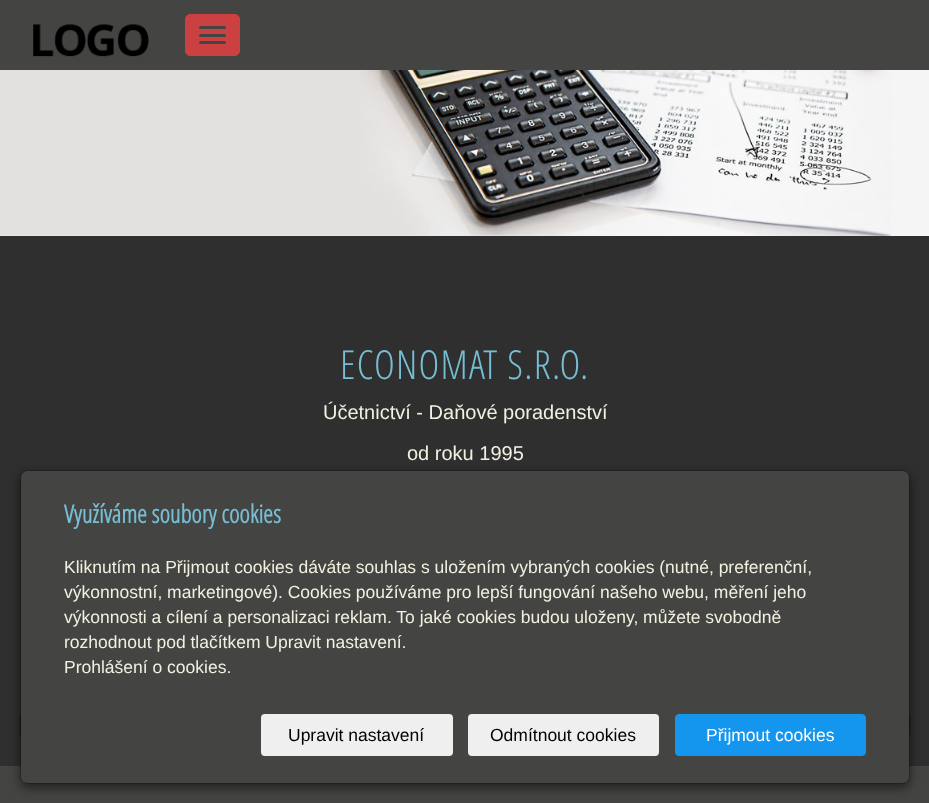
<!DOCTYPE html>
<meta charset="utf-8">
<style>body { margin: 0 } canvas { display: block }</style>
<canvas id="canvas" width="929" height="803"></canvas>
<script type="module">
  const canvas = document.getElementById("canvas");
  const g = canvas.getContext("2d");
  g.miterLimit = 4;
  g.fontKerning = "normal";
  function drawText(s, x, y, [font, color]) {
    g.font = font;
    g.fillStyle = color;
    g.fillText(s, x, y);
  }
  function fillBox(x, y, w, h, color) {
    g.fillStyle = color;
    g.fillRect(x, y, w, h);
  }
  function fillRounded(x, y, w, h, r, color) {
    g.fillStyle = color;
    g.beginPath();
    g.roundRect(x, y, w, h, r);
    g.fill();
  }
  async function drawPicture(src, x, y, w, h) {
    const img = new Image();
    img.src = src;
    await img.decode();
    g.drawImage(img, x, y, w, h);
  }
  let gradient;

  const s1 = ["300 40px Open Sans", "#77BED4"];
  const s2 = ["20px Liberation Sans", "#F2F0E0"];
  const s3 = ["bold 25px Open Sans", "#77BED4"];
  const s4 = ["17.5px Liberation Sans", "#F2F0E0"];
  const s5 = ["17.5px Liberation Sans", "#000000"];
  const s6 = ["17.5px Liberation Sans", "#FFFFFF"];

  fillBox(0, 0, 929, 803, "#2F2F2F");
  fillBox(0, 0, 929, 70, "#444442");
  await drawPicture("pic1.png", 33, 24, 116, 33);
  g.fillStyle = "#CB4040";
  g.beginPath();
  g.roundRect(185.5, 14.5, 54, 41, 4.5);
  g.fill();
  g.strokeStyle = "#CB4040";
  g.stroke();
  fillRounded(199, 26, 27, 3, 1.5, "#444442");
  fillRounded(199, 34, 27, 3, 1.5, "#444442");
  fillRounded(199, 41, 27, 3, 1.5, "#444442");
  fillBox(0, 766, 929, 37, "#444442");
  fillBox(0, 70, 929, 166, "#F5F5F5");
  await drawPicture("pic2.png", 0, 70, 891, 166);
  g.letterSpacing = "1.25px";
  drawText("ECONOMAT S.R.O.", 340, 379, s1);
  g.letterSpacing = "0px";
  drawText("Účetnictví - Daňové poradenství", 323, 419, s2);
  drawText("od roku 1995", 407, 460, s2);
  gradient = g.createLinearGradient(19, 725, 153, 725);
  gradient.addColorStop(0, "#242424");
  gradient.addColorStop(1, "#2F2F2F");
  g.fillStyle = gradient;
  g.fillRect(19, 715, 2, 20);
  gradient = g.createLinearGradient(778, 725, 911, 725);
  gradient.addColorStop(0, "#2F2F2F");
  gradient.addColorStop(1, "#242424");
  g.fillStyle = gradient;
  g.fillRect(909, 715, 2, 20);
  g.fillStyle = "rgba(0, 0, 0, 0.5)";
  g.filter = "blur(5.5px)";
  g.beginPath();
  g.roundRect(20, 474, 890, 314, 8);
  g.fill();
  g.filter = "none";
  fillRounded(21, 471, 888, 312, 6, "#444442");
  g.beginPath();
  g.roundRect(20.5, 470.5, 889, 313, 7.5);
  g.strokeStyle = "rgba(0, 0, 0, 0.2)";
  g.stroke();
  drawText("Využíváme soubory cookies", 64, 523, s3);
  drawText("Kliknutím na Přijmout cookies dáváte souhlas s uložením vybraných cookies (nutné, preferenční,", 64, 573, s4);
  drawText("výkonnostní, marketingové). Cookies používáme pro lepší fungování našeho webu, měření jeho", 64, 598, s4);
  drawText("výkonnosti a cílení a personalizaci reklam. To jaké cookies budou uloženy, můžete svobodně", 64, 623, s4);
  drawText("rozhodnout pod tlačítkem Upravit nastavení.", 64, 648, s4);
  drawText("Prohlášení o cookies.", 64, 673, s4);
  fillRounded(261, 714, 192, 42, 4, "#EFEFEF");
  drawText("Upravit nastavení", 288, 741, s5);
  fillRounded(468, 714, 191, 42, 4, "#EFEFEF");
  drawText("Odmítnout cookies", 490, 741, s5);
  g.fillStyle = "#1496EE";
  g.beginPath();
  g.roundRect(675.5, 714.5, 190, 41, 3.5);
  g.fill();
  g.strokeStyle = "#1496EE";
  g.stroke();
  drawText("Přijmout cookies", 706, 741, s6);
</script>
